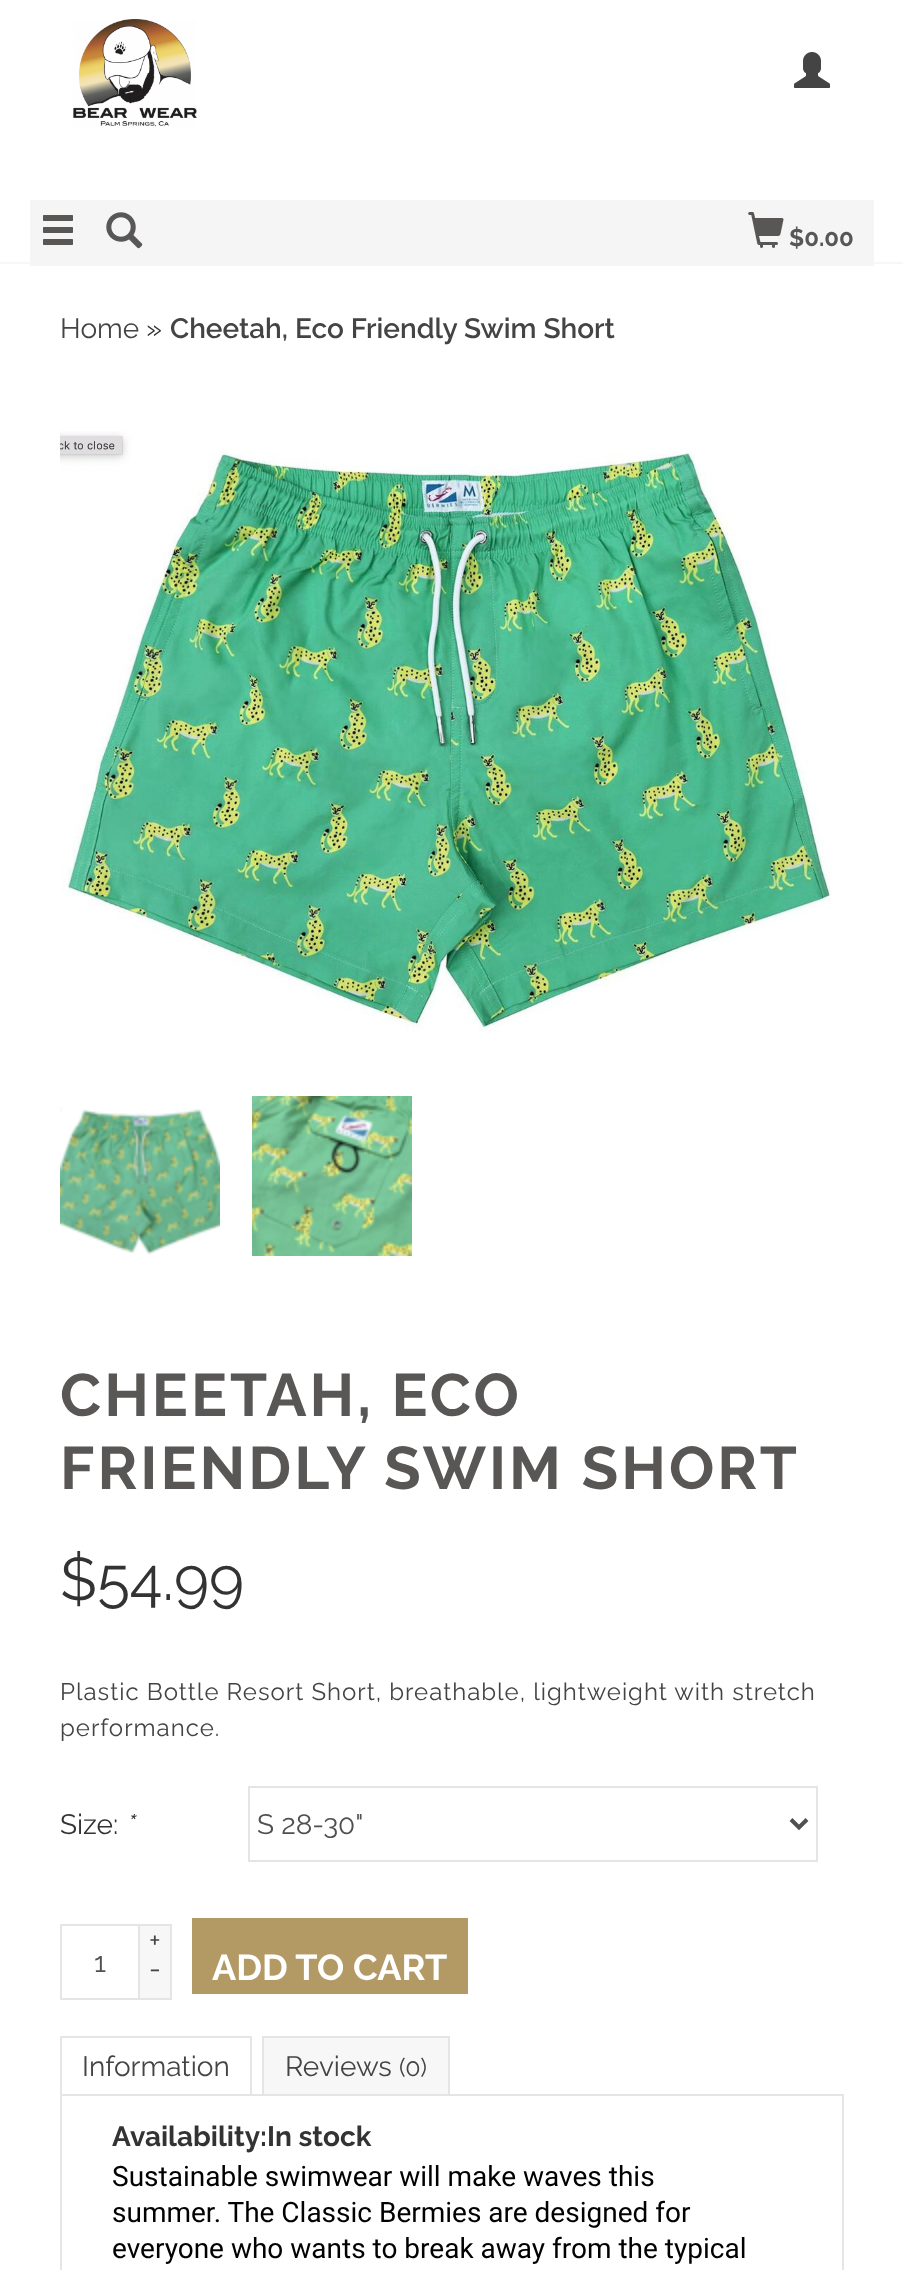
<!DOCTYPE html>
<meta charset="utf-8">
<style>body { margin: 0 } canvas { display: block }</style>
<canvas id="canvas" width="903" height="2270"></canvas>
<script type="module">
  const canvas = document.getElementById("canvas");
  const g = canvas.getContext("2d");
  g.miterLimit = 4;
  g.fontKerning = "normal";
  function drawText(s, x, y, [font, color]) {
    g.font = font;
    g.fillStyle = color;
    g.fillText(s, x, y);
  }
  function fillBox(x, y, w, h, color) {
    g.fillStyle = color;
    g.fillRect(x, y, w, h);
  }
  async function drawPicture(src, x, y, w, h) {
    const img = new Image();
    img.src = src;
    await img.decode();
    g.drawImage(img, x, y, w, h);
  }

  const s1 = ["bold 24px Raleway", "#595656"];
  const s2 = ["28px Raleway", "#444444"];
  const s3 = ["28px Raleway", "#333333"];
  const s4 = ["600 28px Raleway", "#444444"];
  const s5 = ["bold 60px Raleway", "#595656"];
  const s6 = ["60px Raleway", "#333333"];
  const s7 = ["24px Raleway", "#444444"];
  const s8 = ["italic 28px Raleway", "#333333"];
  const s9 = ["28px Raleway", "#515050"];
  const s10 = ["bold 36px Raleway", "#FFFFFF"];
  const s11 = ["25px Raleway", "#444444"];
  const s12 = ["bold 28px Raleway", "#333333"];
  const s13 = ["28px Roboto", "#000000"];

  fillBox(0, 0, 903, 2270, "#FFFFFF");
  fillBox(0, 262, 903, 2, "#F7F7F7");
  await drawPicture("pic1.png", 73, 19, 124, 108);
  await drawPicture("pic2.png", 794, 52, 36, 36);
  fillBox(30, 200, 844, 66, "#F5F5F5");
  await drawPicture("pic3.png", 43, 215, 30, 30);
  await drawPicture("pic4.png", 106, 212, 37, 37);
  await drawPicture("pic5.png", 748, 212, 36, 36);
  drawText("$0.00", 789, 246, s1);
  drawText("Home", 60, 338, s2);
  drawText("»", 146, 338, s3);
  drawText("Cheetah, Eco Friendly Swim Short", 170, 338, s4);
  await drawPicture("pic6.png", 60, 431, 771, 601);
  await drawPicture("pic7.png", 60, 1107, 160, 148);
  await drawPicture("pic8.png", 252, 1096, 160, 160);
  g.letterSpacing = "3px";
  drawText("CHEETAH, ECO", 60, 1416, s5);
  drawText("FRIENDLY SWIM SHORT", 60, 1489, s5);
  g.letterSpacing = "0px";
  drawText("$54.99", 60, 1600, s6);
  g.letterSpacing = "1px";
  drawText("Plastic Bottle Resort Short, breathable, lightweight with stretch", 60, 1700, s7);
  drawText("performance.", 60, 1736, s7);
  g.letterSpacing = "0px";
  drawText("Size:", 60, 1834, s3);
  drawText("*", 125, 1834, s8);
  g.strokeStyle = "#E5E5E5";
  g.lineWidth = 2;
  g.strokeRect(249, 1787, 568, 74);
  g.beginPath();
  g.moveTo(791, 1819.5);
  g.lineTo(799, 1827.5);
  g.lineTo(807, 1819.5);
  g.strokeStyle = "#515050";
  g.lineWidth = 4;
  g.stroke();
  drawText("S 28-30\"", 257, 1834, s9);
  g.strokeStyle = "#E5E5E5";
  g.lineWidth = 2;
  g.strokeRect(61, 1925, 78, 74);
  drawText("1", 94, 1972, s9);
  fillBox(140, 1926, 30, 72, "#F7F7F7");
  fillBox(140, 1924, 32, 2, "#E5E5E5");
  fillBox(170, 1924, 2, 76, "#E5E5E5");
  fillBox(140, 1998, 32, 2, "#E5E5E5");
  drawText("+", 149, 1950, s2);
  drawText("-", 149, 1978, s2);
  fillBox(192, 1918, 276, 76, "#B39964");
  drawText("ADD TO CART", 212, 1980, s10);
  fillBox(60, 2036, 192, 2, "#E5E5E5");
  fillBox(250, 2036, 2, 60, "#E5E5E5");
  fillBox(60, 2036, 2, 60, "#E5E5E5");
  drawText("Information", 82, 2076, s2);
  fillBox(264, 2038, 184, 56, "#F7F7F7");
  fillBox(262, 2036, 188, 2, "#E5E5E5");
  fillBox(448, 2036, 2, 60, "#E5E5E5");
  fillBox(262, 2036, 2, 60, "#E5E5E5");
  drawText("Reviews", 285, 2076, s2);
  drawText("(0)", 399, 2076, s11);
  g.strokeRect(61, 2095, 782, 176);
  drawText("Availability:In stock", 112, 2146, s12);
  drawText("Sustainable swimwear will make waves this", 112, 2186, s13);
  drawText("summer. The Classic Bermies are designed for", 112, 2222, s13);
  drawText("everyone who wants to break away from the typical", 112, 2258, s13);
</script>
